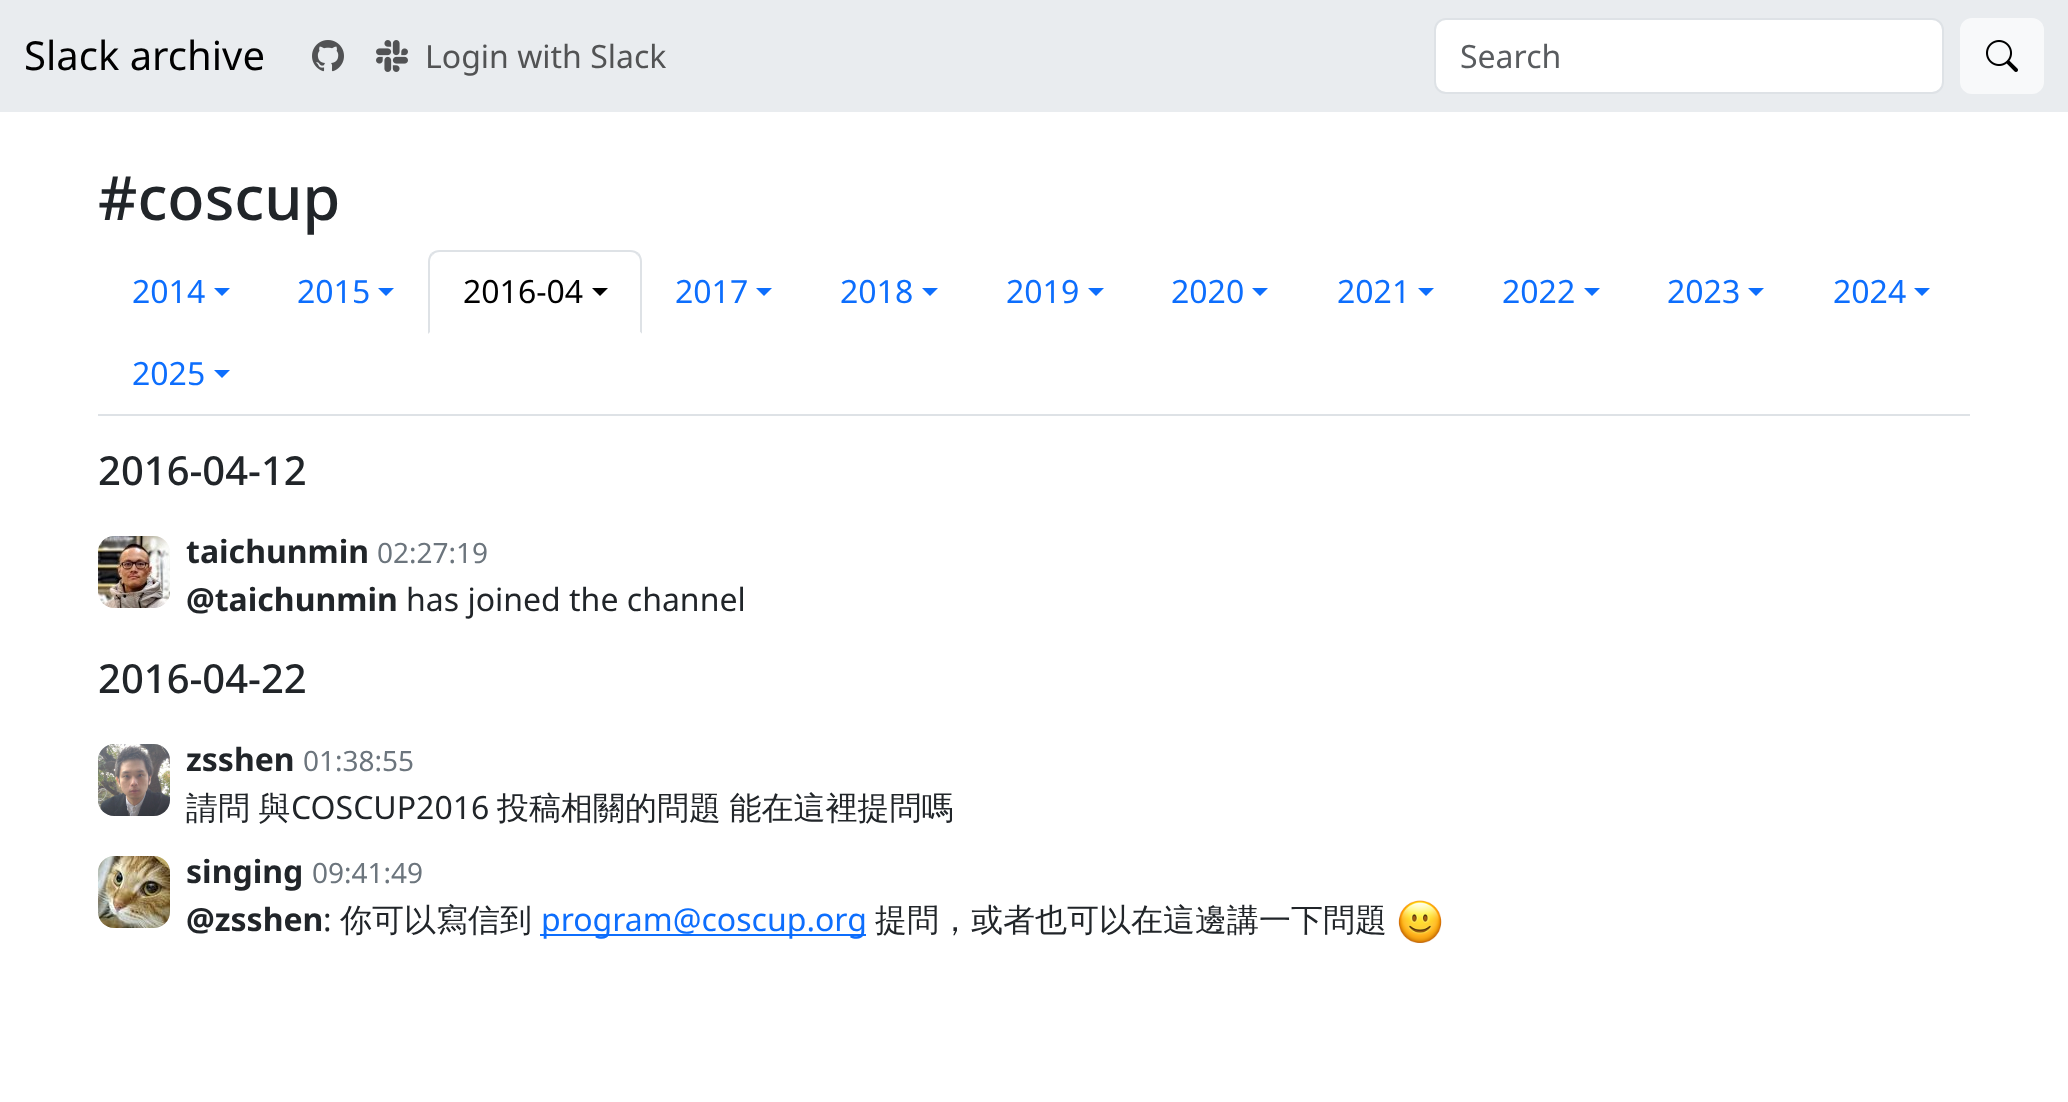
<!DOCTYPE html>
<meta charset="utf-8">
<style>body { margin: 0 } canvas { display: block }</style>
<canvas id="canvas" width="2068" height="1102"></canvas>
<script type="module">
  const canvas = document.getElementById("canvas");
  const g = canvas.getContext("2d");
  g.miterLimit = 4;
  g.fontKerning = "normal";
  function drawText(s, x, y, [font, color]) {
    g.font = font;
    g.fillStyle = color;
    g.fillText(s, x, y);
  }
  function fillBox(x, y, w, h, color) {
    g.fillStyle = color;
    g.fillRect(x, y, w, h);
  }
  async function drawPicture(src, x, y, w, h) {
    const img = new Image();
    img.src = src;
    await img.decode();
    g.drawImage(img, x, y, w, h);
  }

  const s1 = ["40px Noto Sans", "#000000"];
  const s2 = ["32px Noto Sans", "#525354"];
  const s3 = ["32px Noto Sans", "#595C5F"];
  const s4 = ["500 61px Noto Sans", "#212529"];
  const s5 = ["32px Noto Sans", "#0D6EFD"];
  const s6 = ["32px Noto Sans", "#000000"];
  const s7 = ["500 40px Noto Sans", "#212529"];
  const s8 = ["bold 32px Noto Sans", "#212529"];
  const s9 = ["28px Noto Sans", "#6C757D"];
  const s10 = ["32px Noto Sans", "#212529"];
  const s11 = ["500 32px WenQuanYi Zen Hei", "#212529"];

  fillBox(0, 0, 2068, 1102, "#FFFFFF");
  fillBox(0, 0, 2068, 112, "#E9ECEF");
  drawText("Slack archive", 24, 70, s1);
  await drawPicture("pic1.png", 312, 40, 32, 32);
  await drawPicture("pic2.png", 376, 40, 32, 32);
  drawText("Login with Slack", 425, 68, s2);
  g.fillStyle = "#FFFFFF";
  g.beginPath();
  g.roundRect(1435, 19, 508, 74, 11);
  g.fill();
  g.strokeStyle = "#DEE2E6";
  g.lineWidth = 2;
  g.stroke();
  drawText("Search", 1460, 68, s3);
  g.fillStyle = "#F8F9FA";
  g.beginPath();
  g.roundRect(1961, 19, 82, 74, 11);
  g.fill();
  g.strokeStyle = "#F8F9FA";
  g.stroke();
  await drawPicture("pic3.png", 1986, 40, 32, 32);
  drawText("#coscup", 98, 220, s4);
  fillBox(98, 414, 1872, 2, "#DEE2E6");
  drawText("2014", 132, 303, s5);
  g.beginPath();
  g.moveTo(214, 288);
  g.lineTo(230, 288);
  g.lineTo(222, 296);
  g.closePath();
  g.fill();
  drawText("2015", 297, 303, s5);
  g.beginPath();
  g.moveTo(378, 288);
  g.lineTo(394, 288);
  g.lineTo(386, 296);
  g.closePath();
  g.fill();
  g.fillStyle = "#DEE2E6";
  g.beginPath();
  g.moveTo(440, 250);
  g.bezierCurveTo(436, 250, 434, 251, 431, 253);
  g.lineTo(433, 255);
  g.bezierCurveTo(434, 253, 437, 252, 440, 252);
  g.lineTo(630, 252);
  g.bezierCurveTo(633, 252, 636, 253, 637, 255);
  g.lineTo(639, 253);
  g.bezierCurveTo(636, 251, 634, 250, 630, 250);
  g.closePath();
  g.fill();
  g.beginPath();
  g.moveTo(642, 334);
  g.lineTo(642, 262);
  g.bezierCurveTo(642, 258, 641, 256, 639, 253);
  g.lineTo(637, 255);
  g.bezierCurveTo(639, 256, 640, 259, 640, 262);
  g.lineTo(640, 332);
  g.closePath();
  g.fill();
  g.fillStyle = "#FFFFFF";
  g.beginPath();
  g.moveTo(642, 334);
  g.lineTo(640, 332);
  g.lineTo(430, 332);
  g.lineTo(428, 334);
  g.closePath();
  g.fill();
  g.fillStyle = "#DEE2E6";
  g.beginPath();
  g.moveTo(428, 334);
  g.lineTo(430, 332);
  g.lineTo(430, 262);
  g.bezierCurveTo(430, 259, 431, 256, 433, 255);
  g.lineTo(431, 253);
  g.bezierCurveTo(429, 256, 428, 258, 428, 262);
  g.closePath();
  g.fill();
  drawText("2016-04", 463, 303, s6);
  g.beginPath();
  g.moveTo(592, 288);
  g.lineTo(608, 288);
  g.lineTo(600, 296);
  g.closePath();
  g.fill();
  drawText("2017", 675, 303, s5);
  g.beginPath();
  g.moveTo(756, 288);
  g.lineTo(772, 288);
  g.lineTo(764, 296);
  g.closePath();
  g.fill();
  drawText("2018", 840, 303, s5);
  g.beginPath();
  g.moveTo(922, 288);
  g.lineTo(938, 288);
  g.lineTo(930, 296);
  g.closePath();
  g.fill();
  drawText("2019", 1006, 303, s5);
  g.beginPath();
  g.moveTo(1088, 288);
  g.lineTo(1104, 288);
  g.lineTo(1096, 296);
  g.closePath();
  g.fill();
  drawText("2020", 1171, 303, s5);
  g.beginPath();
  g.moveTo(1252, 288);
  g.lineTo(1268, 288);
  g.lineTo(1260, 296);
  g.closePath();
  g.fill();
  drawText("2021", 1337, 303, s5);
  g.beginPath();
  g.moveTo(1418, 288);
  g.lineTo(1434, 288);
  g.lineTo(1426, 296);
  g.closePath();
  g.fill();
  drawText("2022", 1502, 303, s5);
  g.beginPath();
  g.moveTo(1584, 288);
  g.lineTo(1600, 288);
  g.lineTo(1592, 296);
  g.closePath();
  g.fill();
  drawText("2023", 1667, 303, s5);
  g.beginPath();
  g.moveTo(1748, 288);
  g.lineTo(1764, 288);
  g.lineTo(1756, 296);
  g.closePath();
  g.fill();
  drawText("2024", 1833, 303, s5);
  g.beginPath();
  g.moveTo(1914, 288);
  g.lineTo(1930, 288);
  g.lineTo(1922, 296);
  g.closePath();
  g.fill();
  drawText("2025", 132, 385, s5);
  g.beginPath();
  g.moveTo(214, 370);
  g.lineTo(230, 370);
  g.lineTo(222, 378);
  g.closePath();
  g.fill();
  drawText("2016-04-12", 98, 485, s7);
  await drawPicture("pic4.png", 98, 536, 72, 72);
  drawText("taichunmin", 186, 563, s8);
  drawText("02:27:19", 377, 563, s9);
  drawText("@taichunmin", 186, 611, s8);
  drawText("has joined the channel", 406, 611, s10);
  drawText("2016-04-22", 98, 693, s7);
  await drawPicture("pic5.png", 98, 744, 72, 72);
  drawText("zsshen", 186, 771, s8);
  drawText("01:38:55", 303, 771, s9);
  g.wordSpacing = "-1px";
  drawText("請問 與", 186, 819, s11);
  g.wordSpacing = "0px";
  drawText("COSCUP2016", 291, 819, s10);
  g.wordSpacing = "-1px";
  drawText("投稿相關的問題 能在這裡提問嗎", 497, 819, s11);
  await drawPicture("pic6.png", 98, 856, 72, 72);
  g.wordSpacing = "0px";
  drawText("singing", 186, 883, s8);
  drawText("09:41:49", 312, 883, s9);
  drawText("@zsshen", 186, 931, s8);
  drawText(":", 323, 931, s10);
  drawText("你可以寫信到", 340, 931, s11);
  fillBox(540, 934, 326, 2, "#0D6EFD");
  drawText("program@coscup.org", 541, 931, s5);
  drawText("提問，或者也可以在這邊講一下問題", 875, 931, s11);
  await drawPicture("pic7.png", 1398, 900, 44, 43);
</script>
